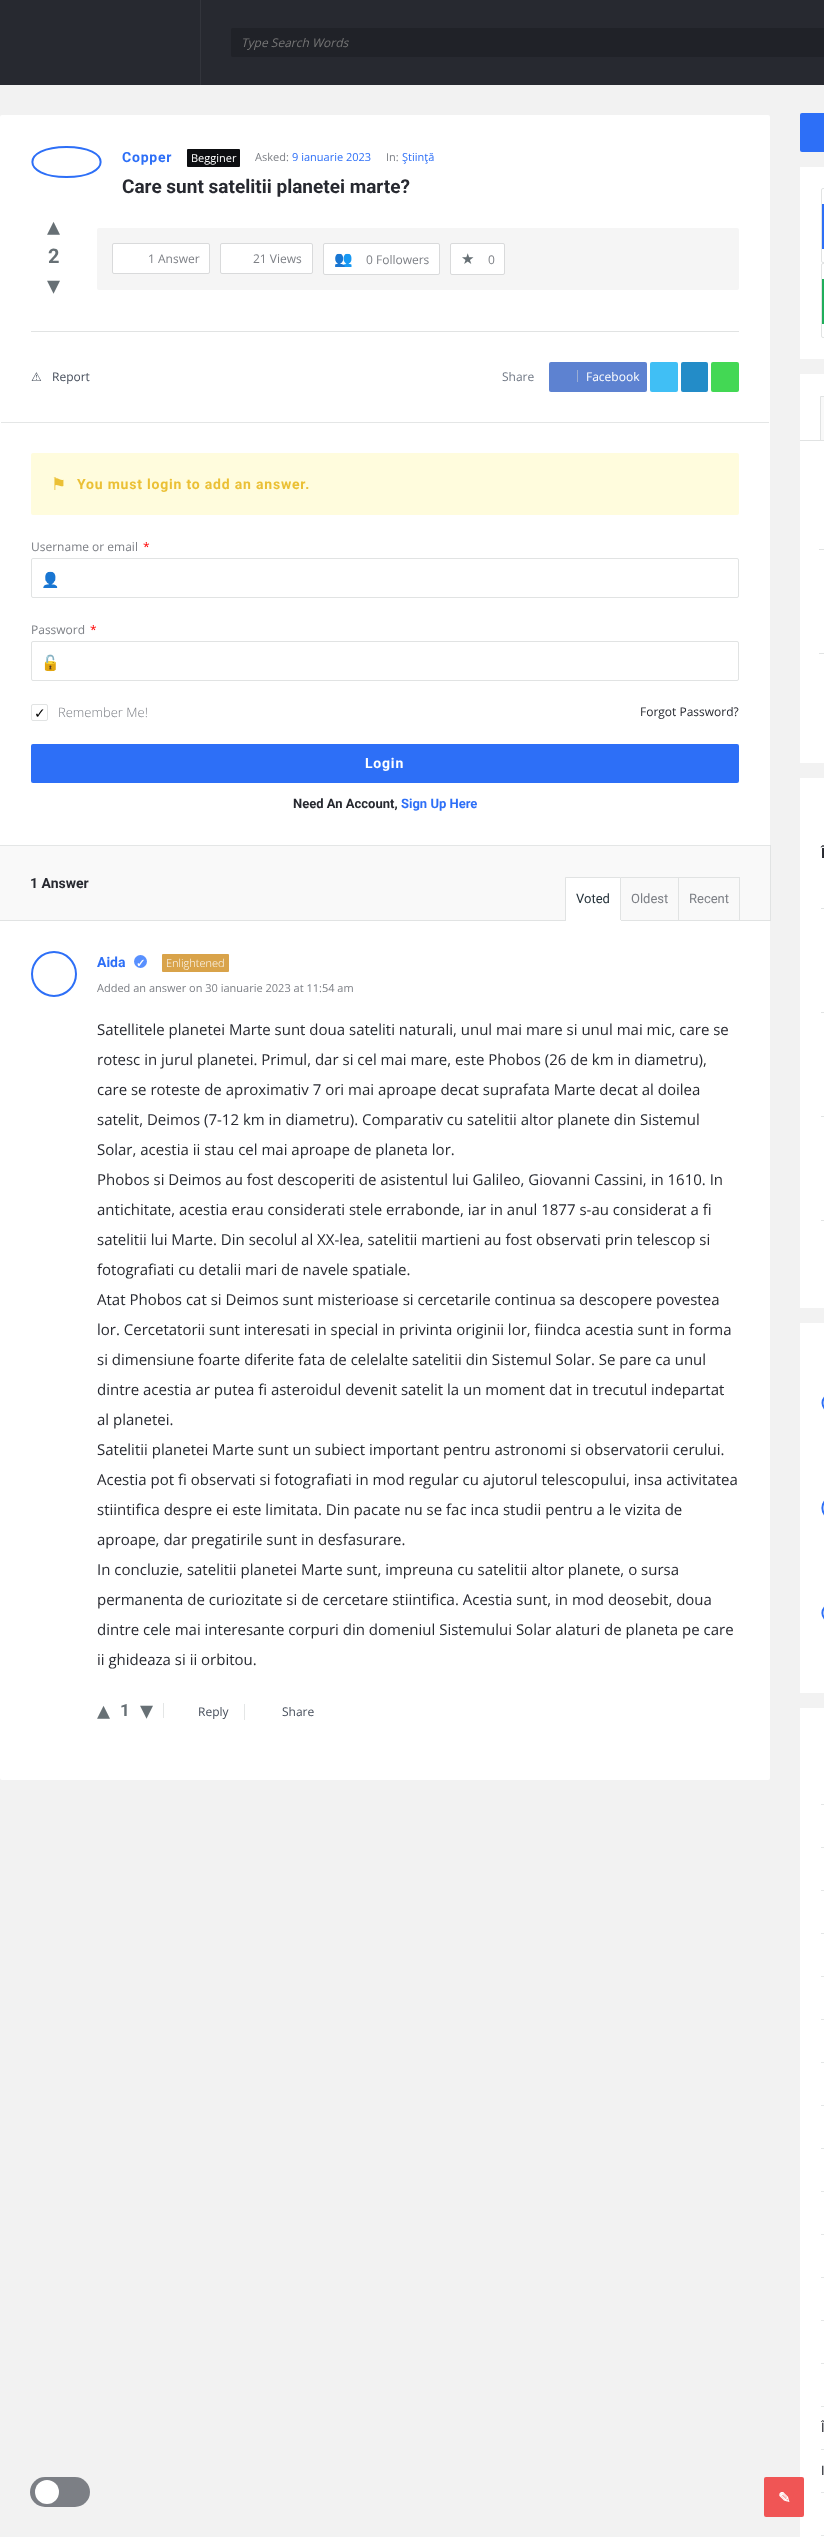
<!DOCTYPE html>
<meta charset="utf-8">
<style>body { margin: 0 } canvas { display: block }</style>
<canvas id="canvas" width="824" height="2537"></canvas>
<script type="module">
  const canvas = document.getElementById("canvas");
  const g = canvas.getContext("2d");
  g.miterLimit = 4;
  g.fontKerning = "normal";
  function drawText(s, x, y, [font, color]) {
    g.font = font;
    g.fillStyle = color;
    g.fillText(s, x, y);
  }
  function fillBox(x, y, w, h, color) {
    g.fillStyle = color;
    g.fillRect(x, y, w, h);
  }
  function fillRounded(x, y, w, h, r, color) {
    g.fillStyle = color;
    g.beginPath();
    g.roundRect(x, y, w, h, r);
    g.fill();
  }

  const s1 = ["italic 12px Open Sans", "#757575"];
  const s2 = ["bold 14px Roboto", "#2D6FF7"];
  const s3 = ["11px Open Sans", "#FFFFFF"];
  const s4 = ["11px Open Sans", "#7C7F85"];
  const s5 = ["11px Open Sans", "#2D6FF7"];
  const s6 = ["bold 19px Roboto", "#272930"];
  const s7 = ["26px DejaVu Sans", "#677075"];
  const s8 = ["bold 20px Roboto", "#677075"];
  const s9 = ["12px Open Sans", "#7C7F85"];
  const s10 = ["15px Noto Color Emoji", "#677075"];
  const s11 = ["15px DejaVu Sans", "#677075"];
  const s12 = ["12px DejaVu Sans", "#464E5B"];
  const s13 = ["12px Open Sans", "#464E5B"];
  const s14 = ["12px Open Sans", "#707885"];
  const s15 = ["12px Open Sans", "#FFFFFF"];
  const s16 = ["17px DejaVu Sans", "#EBC035"];
  const s17 = ["bold 14px Roboto", "#EBC035"];
  const s18 = ["12px Open Sans", "#FF0000"];
  const s19 = ["15px Noto Color Emoji", "#999999"];
  const s20 = ["14px DejaVu Sans", "#000000"];
  const s21 = ["300 13px Open Sans", "#7C7F85"];
  const s22 = ["12px Open Sans", "#272930"];
  const s23 = ["bold 14px Roboto", "#FFFFFF"];
  const s24 = ["bold 13px Roboto", "#272930"];
  const s25 = ["bold 13px Roboto", "#2D6FF7"];
  const s26 = ["bold 14px Roboto", "#272930"];
  const s27 = ["13px Roboto", "#26333B"];
  const s28 = ["13px Roboto", "#7C7F85"];
  const s29 = ["bold 11px DejaVu Sans", "#FFFFFF"];
  const s30 = ["300 11px Open Sans", "#FFFFFF"];
  const s31 = ["15px Open Sans", "#272930"];
  const s32 = ["bold 17px Roboto", "#677075"];
  const s33 = ["13px Roboto", "#272930"];
  const s34 = ["bold 15px DejaVu Sans", "#FFFFFF"];

  fillBox(0, 0, 824, 2537, "#F2F2F2");
  fillBox(0, 0, 824, 85, "#272930");
  fillBox(200, 0, 1, 85, "#33353C");
  fillRounded(231, 28, 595, 29, 2, "#202228");
  drawText("Type Search Words", 241, 47, s1);
  fillRounded(0, 115, 770, 1665, 2, "#FFFFFF");
  g.beginPath();
  g.moveTo(66.5, 147);
  g.bezierCurveTo(112, 147, 112, 177, 66.5, 177);
  g.bezierCurveTo(21, 177, 21, 147, 66.5, 147);
  g.closePath();
  g.strokeStyle = "#2D6FF7";
  g.lineWidth = 2;
  g.stroke();
  g.letterSpacing = "0.8px";
  drawText("Copper", 122, 162, s2);
  fillRounded(187, 149, 53, 18, 1, "#0D0E11");
  g.letterSpacing = "0px";
  drawText("Begginer", 191, 162, s3);
  drawText("Asked:", 255, 161, s4);
  drawText("9 ianuarie 2023", 292, 161, s5);
  drawText("In:", 386, 161, s4);
  drawText("Ştiinţă", 402, 161, s5);
  drawText("Care sunt satelitii planetei marte?", 122, 193, s6);
  drawText("▴", 47, 235, s7);
  drawText("2", 48, 263, s8);
  drawText("▾", 47, 294, s7);
  fillRounded(97, 228, 642, 62, 2, "#F5F5F5");
  g.fillStyle = "#FFFFFF";
  g.beginPath();
  g.roundRect(112.5, 243.5, 97, 30, 1.5);
  g.fill();
  g.strokeStyle = "#D9DADB";
  g.lineWidth = 1;
  g.stroke();
  drawText("1 Answer", 148, 263, s9);
  g.fillStyle = "#FFFFFF";
  g.beginPath();
  g.roundRect(220.5, 243.5, 92, 30, 1.5);
  g.fill();
  g.stroke();
  drawText("21 Views", 253, 263, s9);
  g.fillStyle = "#FFFFFF";
  g.beginPath();
  g.roundRect(323.5, 243.5, 116, 31, 1.5);
  g.fill();
  g.stroke();
  drawText("👥", 334, 264, s10);
  drawText("0 Followers", 366, 264, s9);
  g.fillStyle = "#FFFFFF";
  g.beginPath();
  g.roundRect(450.5, 243.5, 54, 31, 1.5);
  g.fill();
  g.stroke();
  drawText("★", 461, 264, s11);
  drawText("0", 488, 264, s9);
  fillBox(31, 331, 708, 1, "#E1E3E3");
  drawText("⚠", 31, 381, s12);
  drawText("Report", 52, 381, s13);
  drawText("Share", 502, 381, s14);
  fillRounded(549, 362, 98, 30, 2, "#5D82D1");
  fillBox(577, 370, 1, 12, "#9AADD4");
  drawText("Facebook", 586, 381, s15);
  fillRounded(650, 362, 28, 30, 2, "#40BFF5");
  fillRounded(681, 362, 27, 30, 2, "#238CC8");
  fillRounded(711, 362, 28, 30, 2, "#43D854");
  fillBox(1, 422, 768, 1, "#E4E6E6");
  fillRounded(31, 453, 708, 62, 2, "#FFFCDD");
  g.letterSpacing = "0.8px";
  drawText("⚑", 51, 490, s16);
  drawText("You must login to add an answer.", 77, 489, s17);
  g.letterSpacing = "0px";
  drawText("Username or email", 31, 551, s9);
  drawText("*", 143, 551, s18);
  g.beginPath();
  g.roundRect(31.5, 558.5, 707, 39, 1.5);
  g.strokeStyle = "#E1E3E3";
  g.stroke();
  drawText("👤", 41, 585, s19);
  drawText("Password", 31, 634, s9);
  drawText("*", 90, 634, s18);
  g.beginPath();
  g.roundRect(31.5, 641.5, 707, 39, 1.5);
  g.stroke();
  drawText("🔓", 41, 668, s19);
  g.beginPath();
  g.roundRect(31.5, 704.5, 16, 16, 1.5);
  g.stroke();
  drawText("✓", 34, 718, s20);
  drawText("Remember Me!", 58, 717, s21);
  drawText("Forgot Password?", 640, 716, s22);
  fillRounded(31, 744, 708, 39, 2, "#2D6FF7");
  g.letterSpacing = "0.8px";
  drawText("Login", 365, 768, s23);
  g.letterSpacing = "0px";
  drawText("Need An Account,", 293, 808, s24);
  drawText("Sign Up Here", 401, 808, s25);
  fillBox(0, 846, 770, 74, "#F9F9F9");
  fillBox(0, 845, 771, 1, "#E4E6E6");
  fillBox(770, 845, 1, 76, "#E1E3E3");
  fillBox(0, 920, 771, 1, "#E1E3E3");
  drawText("1 Answer", 30, 888, s26);
  g.fillStyle = "#FFFFFF";
  g.beginPath();
  g.rect(565.5, 877.5, 55, 43);
  g.fill();
  g.stroke();
  drawText("Voted", 576, 903, s27);
  fillBox(566, 920, 55, 1, "#FFFFFF");
  fillBox(621, 877, 119, 1, "#E1E3E3");
  fillBox(678, 877, 1, 44, "#E1E3E3");
  drawText("Oldest", 631, 903, s28);
  fillBox(739, 877, 1, 44, "#E1E3E3");
  drawText("Recent", 689, 903, s28);
  g.beginPath();
  g.arc(54, 974, 22, 0, Math.PI * 2);
  g.strokeStyle = "#2D6FF7";
  g.lineWidth = 2;
  g.stroke();
  drawText("Aida", 97, 967, s2);
  g.fillStyle = "#5890FF";
  g.beginPath();
  g.arc(140.5, 961.5, 6.5, 0, Math.PI * 2);
  g.fill();
  drawText("✓", 136, 967, s29);
  fillRounded(162, 954, 67, 18, 1, "#D9A34A");
  drawText("Enlightened", 166, 967, s30);
  drawText("Added an answer on 30 ianuarie 2023 at 11:54 am", 97, 992, s4);
  drawText("Satellitele planetei Marte sunt doua sateliti naturali, unul mai mare si unul mai mic, care se", 97, 1035, s31);
  drawText("rotesc in jurul planetei. Primul, dar si cel mai mare, este Phobos (26 de km in diametru),", 97, 1065, s31);
  drawText("care se roteste de aproximativ 7 ori mai aproape decat suprafata Marte decat al doilea", 97, 1095, s31);
  drawText("satelit, Deimos (7-12 km in diametru). Comparativ cu satelitii altor planete din Sistemul", 97, 1125, s31);
  drawText("Solar, acestia ii stau cel mai aproape de planeta lor.", 97, 1155, s31);
  drawText("Phobos si Deimos au fost descoperiti de asistentul lui Galileo, Giovanni Cassini, in 1610. In", 97, 1185, s31);
  drawText("antichitate, acestia erau considerati stele errabonde, iar in anul 1877 s-au considerat a fi", 97, 1215, s31);
  drawText("satelitii lui Marte. Din secolul al XX-lea, satelitii martieni au fost observati prin telescop si", 97, 1245, s31);
  drawText("fotografiati cu detalii mari de navele spatiale.", 97, 1275, s31);
  drawText("Atat Phobos cat si Deimos sunt misterioase si cercetarile continua sa descopere povestea", 97, 1305, s31);
  drawText("lor. Cercetatorii sunt interesati in special in privinta originii lor, fiindca acestia sunt in forma", 97, 1335, s31);
  drawText("si dimensiune foarte diferite fata de celelalte satelitii din Sistemul Solar. Se pare ca unul", 97, 1365, s31);
  drawText("dintre acestia ar putea fi asteroidul devenit satelit la un moment dat in trecutul indepartat", 97, 1395, s31);
  drawText("al planetei.", 97, 1425, s31);
  drawText("Satelitii planetei Marte sunt un subiect important pentru astronomi si observatorii cerului.", 97, 1455, s31);
  drawText("Acestia pot fi observati si fotografiati in mod regular cu ajutorul telescopului, insa activitatea", 97, 1485, s31);
  drawText("stiintifica despre ei este limitata. Din pacate nu se fac inca studii pentru a le vizita de", 97, 1515, s31);
  drawText("aproape, dar pregatirile sunt in desfasurare.", 97, 1545, s31);
  drawText("In concluzie, satelitii planetei Marte sunt, impreuna cu satelitii altor planete, o sursa", 97, 1575, s31);
  drawText("permanenta de curiozitate si de cercetare stiintifica. Acestia sunt, in mod deosebit, doua", 97, 1605, s31);
  drawText("dintre cele mai interesante corpuri din domeniul Sistemului Solar alaturi de planeta pe care", 97, 1635, s31);
  drawText("ii ghideaza si ii orbitou.", 97, 1665, s31);
  fillBox(163, 1703, 1, 15, "#E4E6E6");
  drawText("▴", 97, 1719, s7);
  drawText("1", 120, 1716, s32);
  drawText("▾", 140, 1719, s7);
  fillBox(244, 1704, 1, 16, "#E4E6E6");
  drawText("Reply", 198, 1716, s13);
  drawText("Share", 282, 1716, s13);
  fillRounded(800, 113, 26, 39, 2, "#2D6FF7");
  fillBox(800, 167, 24, 192, "#FFFFFF");
  g.beginPath();
  g.roundRect(821.5, 188.5, 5, 74, 1.5);
  g.strokeStyle = "#E1E3E3";
  g.lineWidth = 1;
  g.stroke();
  fillBox(822, 204, 2, 45, "#2D6FF7");
  g.beginPath();
  g.roundRect(821.5, 263.5, 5, 74, 1.5);
  g.stroke();
  fillBox(822, 279, 2, 45, "#1FAE5B");
  fillBox(800, 374, 24, 389, "#FFFFFF");
  fillBox(800, 440, 24, 1, "#E1E3E3");
  g.fillStyle = "#F9F9F9";
  g.beginPath();
  g.rect(820.5, 396.5, 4, 44);
  g.fill();
  g.stroke();
  fillBox(819, 549, 5, 1, "#E1E3E3");
  fillBox(819, 653, 5, 1, "#E1E3E3");
  fillBox(800, 778, 24, 530, "#FFFFFF");
  fillBox(821, 908, 3, 1, "#E1E3E3");
  drawText("Î", 821, 858, s26);
  fillBox(821, 1012, 3, 1, "#E1E3E3");
  fillBox(821, 1116, 3, 1, "#E1E3E3");
  fillBox(821, 1220, 3, 1, "#E1E3E3");
  fillBox(800, 1323, 24, 370, "#FFFFFF");
  g.beginPath();
  g.moveTo(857, 1388);
  g.bezierCurveTo(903, 1388, 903, 1418, 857, 1418);
  g.bezierCurveTo(811, 1418, 811, 1388, 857, 1388);
  g.closePath();
  g.strokeStyle = "#2D6FF7";
  g.lineWidth = 2;
  g.stroke();
  g.beginPath();
  g.moveTo(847.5, 1493);
  g.bezierCurveTo(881, 1493, 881, 1523, 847.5, 1523);
  g.bezierCurveTo(814, 1523, 814, 1493, 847.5, 1493);
  g.closePath();
  g.stroke();
  g.beginPath();
  g.moveTo(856.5, 1598);
  g.bezierCurveTo(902, 1598, 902, 1628, 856.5, 1628);
  g.bezierCurveTo(811, 1628, 811, 1598, 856.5, 1598);
  g.closePath();
  g.stroke();
  fillBox(800, 1708, 24, 829, "#FFFFFF");
  fillBox(821, 1804, 3, 1, "#E4E6E6");
  fillBox(821, 1847, 3, 1, "#E4E6E6");
  fillBox(821, 1890, 3, 1, "#E4E6E6");
  fillBox(821, 1933, 3, 1, "#E4E6E6");
  fillBox(821, 1976, 3, 1, "#E4E6E6");
  fillBox(821, 2019, 3, 1, "#E4E6E6");
  fillBox(821, 2062, 3, 1, "#E4E6E6");
  fillBox(821, 2105, 3, 1, "#E4E6E6");
  fillBox(821, 2148, 3, 1, "#E4E6E6");
  fillBox(821, 2191, 3, 1, "#E4E6E6");
  fillBox(821, 2234, 3, 1, "#E4E6E6");
  fillBox(821, 2277, 3, 1, "#E4E6E6");
  fillBox(821, 2320, 3, 1, "#E4E6E6");
  fillBox(821, 2363, 3, 1, "#E4E6E6");
  fillBox(821, 2406, 3, 1, "#E4E6E6");
  fillBox(821, 2449, 3, 1, "#E4E6E6");
  drawText("Î", 821, 2432, s33);
  fillBox(821, 2492, 3, 1, "#E4E6E6");
  drawText("I", 821, 2475, s33);
  fillBox(821, 2535, 3, 1, "#E4E6E6");
  fillRounded(30, 2477, 60, 30, 15, "#7C7F85");
  g.fillStyle = "#FFFFFF";
  g.beginPath();
  g.arc(47, 2492, 12, 0, Math.PI * 2);
  g.fill();
  fillRounded(764, 2477, 40, 40, 2, "#F05555");
  drawText("✎", 778, 2503, s34);
</script>
